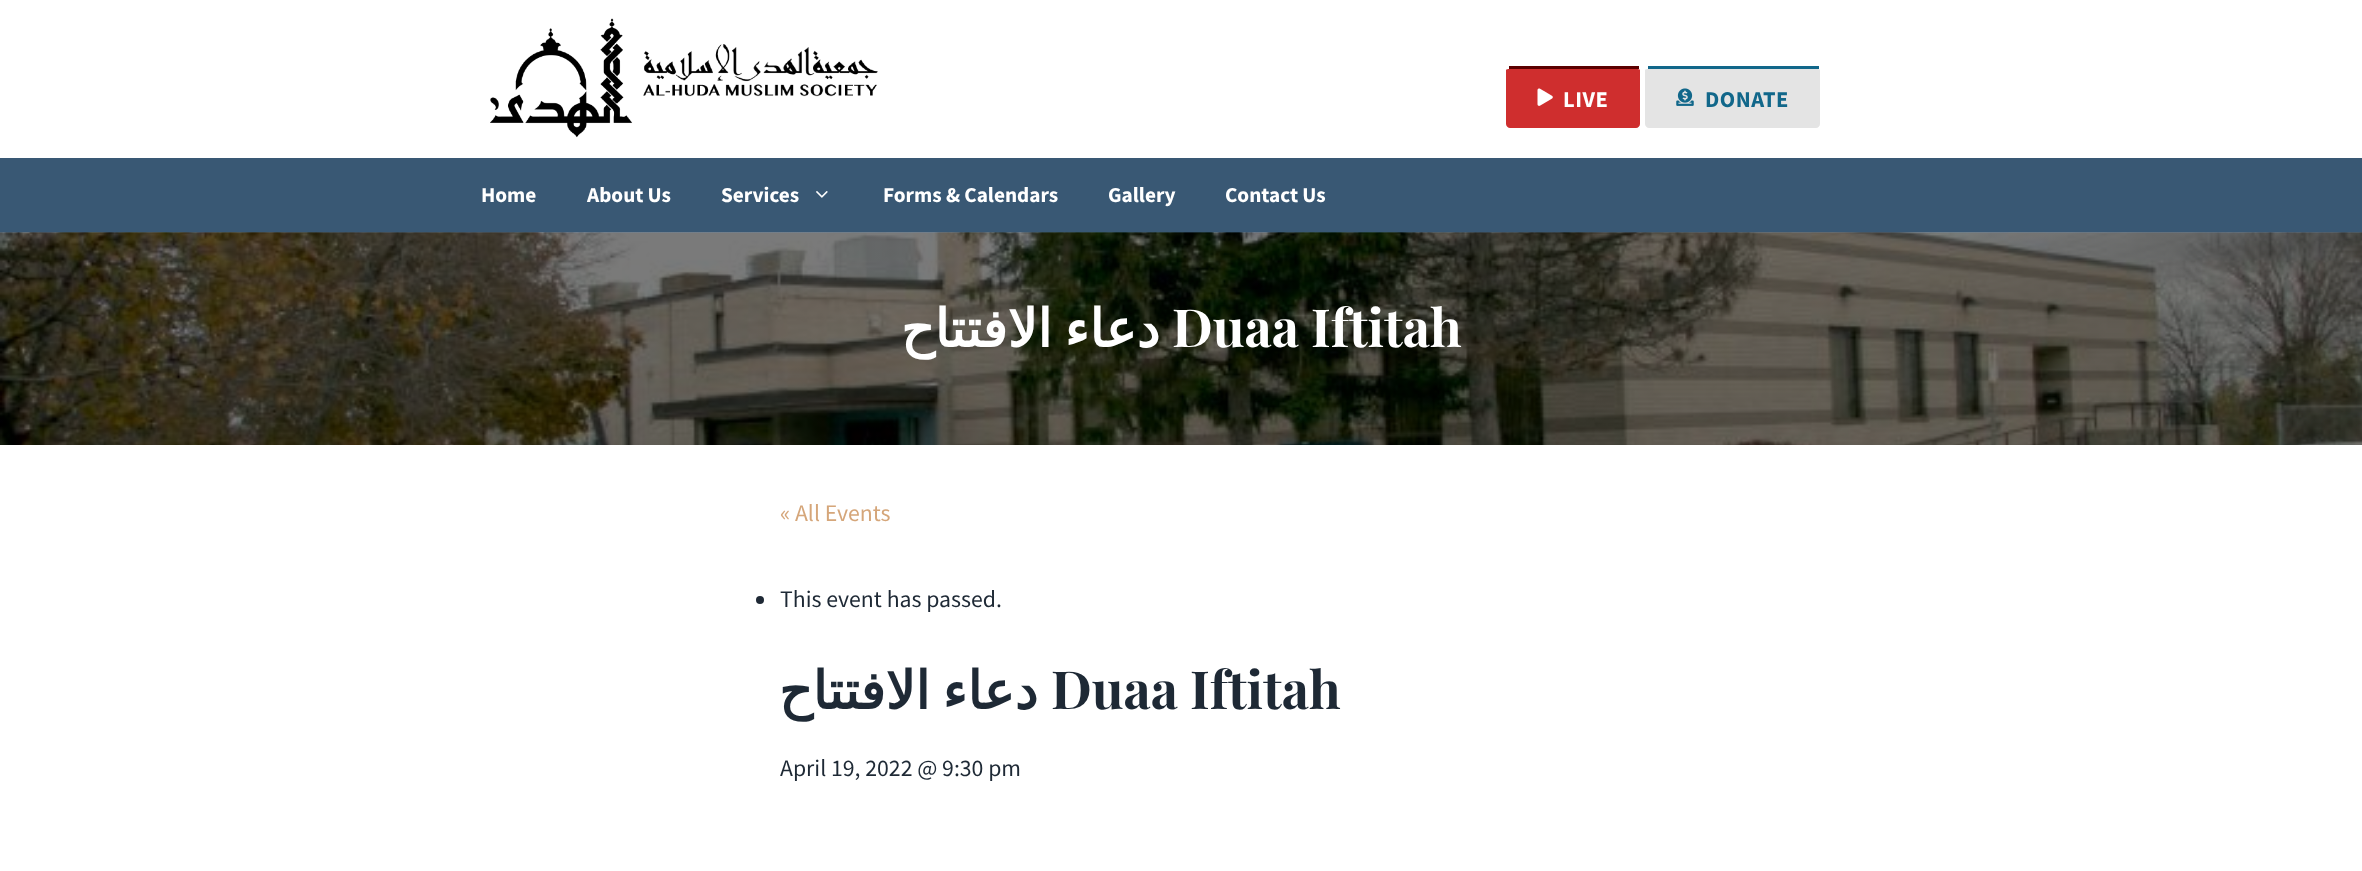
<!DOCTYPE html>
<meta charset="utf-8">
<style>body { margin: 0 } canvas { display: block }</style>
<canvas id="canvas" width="2362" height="871"></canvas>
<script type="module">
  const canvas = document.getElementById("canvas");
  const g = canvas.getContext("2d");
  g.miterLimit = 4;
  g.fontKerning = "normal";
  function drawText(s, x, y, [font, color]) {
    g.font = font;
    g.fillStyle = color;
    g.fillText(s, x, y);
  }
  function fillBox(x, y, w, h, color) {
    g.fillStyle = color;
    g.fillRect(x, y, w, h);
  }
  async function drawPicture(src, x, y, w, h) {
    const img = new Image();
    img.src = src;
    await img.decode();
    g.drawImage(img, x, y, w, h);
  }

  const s1 = ["bold 22.5px Source Sans Pro", "#FFFFFF"];
  const s2 = ["bold 22.5px Source Sans Pro", "#11678A"];
  const s3 = ["bold 21.25px Source Sans Pro", "#FFFFFF"];
  const s4 = ["bold 52.5px DejaVu Sans", "#FFFFFF"];
  const s5 = ["bold 52.5px Playfair Display", "#FFFFFF"];
  const s6 = ["23.75px Source Sans Pro", "#D5A67A"];
  const s7 = ["23.75px Source Sans Pro", "#1E2935"];
  const s8 = ["bold 52.5px DejaVu Sans", "#1E2935"];
  const s9 = ["bold 52.5px Playfair Display", "#1E2935"];

  fillBox(0, 0, 2362, 871, "#FFFFFF");
  await drawPicture("pic1.png", 490, 18, 388, 120);
  g.fillStyle = "#CF2E2E";
  g.beginPath();
  g.moveTo(1510, 69);
  g.lineTo(1636, 69);
  g.bezierCurveTo(1638, 69, 1640, 69, 1640, 70);
  g.lineTo(1640, 124);
  g.bezierCurveTo(1640, 126, 1638, 128, 1636, 128);
  g.lineTo(1510, 128);
  g.bezierCurveTo(1508, 128, 1506, 126, 1506, 124);
  g.lineTo(1506, 70);
  g.bezierCurveTo(1506, 69, 1508, 69, 1510, 69);
  g.closePath();
  g.fill();
  fillBox(1509, 66, 130, 3, "#5B0000");
  await drawPicture("pic2.png", 1537, 88, 16, 18);
  g.letterSpacing = "0.5px";
  drawText("LIVE", 1563, 107, s1);
  g.fillStyle = "#E4E4E4";
  g.beginPath();
  g.moveTo(1649, 69);
  g.lineTo(1816, 69);
  g.bezierCurveTo(1818, 69, 1820, 69, 1820, 70);
  g.lineTo(1820, 124);
  g.bezierCurveTo(1820, 126, 1818, 128, 1816, 128);
  g.lineTo(1649, 128);
  g.bezierCurveTo(1647, 128, 1645, 126, 1645, 124);
  g.lineTo(1645, 70);
  g.bezierCurveTo(1645, 69, 1647, 69, 1649, 69);
  g.closePath();
  g.fill();
  fillBox(1648, 66, 171, 3, "#11678A");
  await drawPicture("pic3.png", 1676, 88, 18, 18);
  drawText("DONATE", 1705, 107, s2);
  fillBox(0, 158, 2362, 75, "#395874");
  g.letterSpacing = "0px";
  drawText("Home", 481, 202, s3);
  drawText("About Us", 587, 202, s3);
  drawText("Services", 721, 202, s3);
  await drawPicture("pic4.png", 816, 191, 12, 7);
  drawText("Forms & Calendars", 883, 202, s3);
  drawText("Gallery", 1108, 202, s3);
  drawText("Contact Us", 1225, 202, s3);
  await drawPicture("pic5.png", 0, 232, 2362, 213);
  g.wordSpacing = "-4px";
  g.direction = "rtl";
  drawText("دعاء الافتتاح", 1160, 347, s4);
  g.wordSpacing = "0px";
  g.direction = "ltr";
  drawText("Duaa Iftitah", 1172, 347, s5);
  drawText("« All Events", 780, 521, s6);
  g.fillStyle = "#1E2935";
  g.beginPath();
  g.arc(760, 600, 4, 0, Math.PI * 2);
  g.fill();
  drawText("This event has passed.", 780, 607, s7);
  g.wordSpacing = "-4px";
  g.direction = "rtl";
  drawText("دعاء الافتتاح", 1038, 709, s8);
  g.wordSpacing = "0px";
  g.direction = "ltr";
  drawText("Duaa Iftitah", 1051, 709, s9);
  drawText("April 19, 2022 @ 9:30 pm", 780, 776, s7);
</script>
